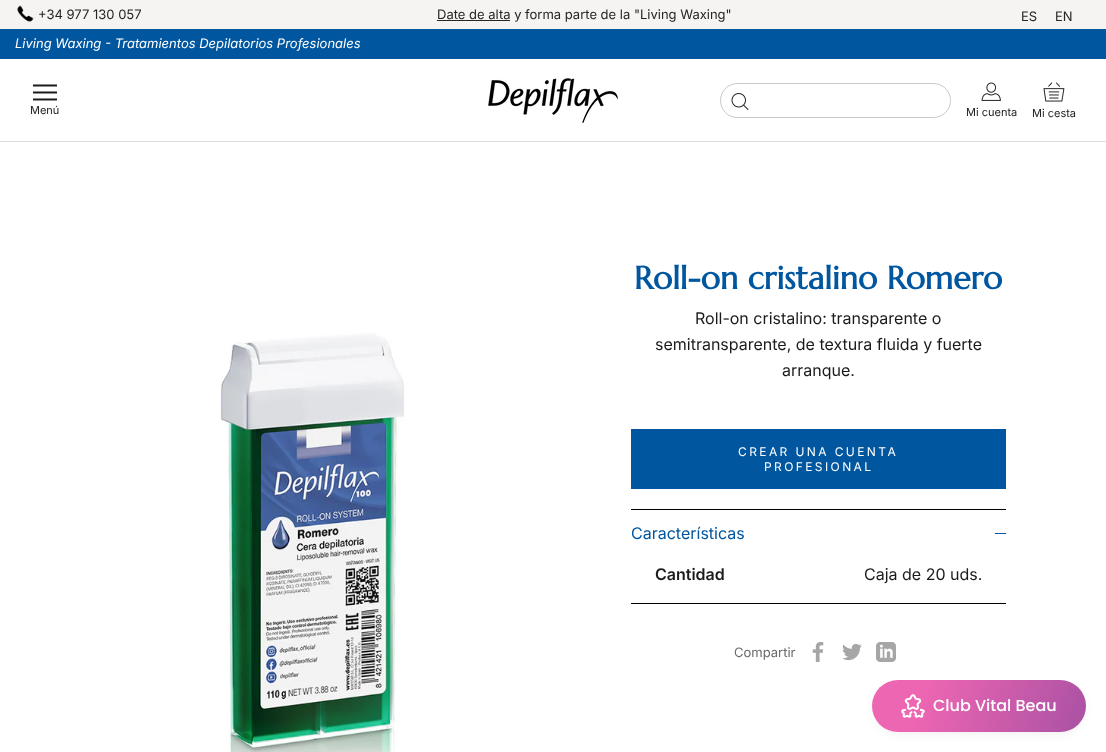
<!DOCTYPE html>
<meta charset="utf-8">
<style>body { margin: 0 } canvas { display: block }</style>
<canvas id="canvas" width="1106" height="752"></canvas>
<script type="module">
  const canvas = document.getElementById("canvas");
  const g = canvas.getContext("2d");
  g.miterLimit = 4;
  g.fontKerning = "normal";
  function drawText(s, x, y, [font, color]) {
    g.font = font;
    g.fillStyle = color;
    g.fillText(s, x, y);
  }
  function fillBox(x, y, w, h, color) {
    g.fillStyle = color;
    g.fillRect(x, y, w, h);
  }
  async function drawPicture(src, x, y, w, h) {
    const img = new Image();
    img.src = src;
    await img.decode();
    g.drawImage(img, x, y, w, h);
  }
  let gradient;

  const s1 = ["13px Inter", "#272525"];
  const s2 = ["italic 13px Inter", "#FFFFFF"];
  const s3 = ["11px Inter", "#1C1B1B"];
  const s4 = ["bold 32px Marcellus", "#0057A0"];
  const s5 = ["16px Inter", "#1C1B1B"];
  const s6 = ["12px Inter", "#FFFFFF"];
  const s7 = ["16px Inter", "#0057A0"];
  const s8 = ["600 16px Inter", "#1C1B1B"];
  const s9 = ["13px Inter", "#6A6A6A"];
  const s10 = ["500 16px Poppins", "#FFFFFF"];

  fillBox(0, 0, 1106, 752, "#FFFFFF");
  fillBox(0, 0, 1106, 29, "#F6F4F2");
  await drawPicture("pic1.png", 17, 5, 17, 17);
  drawText("+34 977 130 057", 38, 19, s1);
  fillBox(437, 20, 73, 1, "#272525");
  drawText("Date de alta y forma parte de la \"Living Waxing\"", 437, 19, s1);
  drawText("ES", 1021, 21, s1);
  drawText("EN", 1055, 21, s1);
  fillBox(0, 29, 1106, 30, "#0057A0");
  drawText("Living Waxing - Tratamientos Depilatorios Profesionales", 15, 48, s2);
  fillBox(0, 141, 1106, 1, "#DDDDDD");
  await drawPicture("pic2.png", 33, 84, 24, 17);
  drawText("Menú", 30, 114, s3);
  await drawPicture("pic3.png", 488, 78, 130, 45);
  g.beginPath();
  g.roundRect(720.5, 83.5, 230, 34, 17);
  g.strokeStyle = "#C9C9C9";
  g.stroke();
  await drawPicture("pic4.png", 731, 93, 18, 17);
  await drawPicture("pic5.png", 981, 82, 20, 19);
  drawText("Mi cuenta", 966, 116, s3);
  await drawPicture("pic6.png", 1043, 82, 22, 20);
  drawText("Mi cesta", 1032, 117, s3);
  await drawPicture("pic7.png", 220, 333, 185, 419);
  drawText("Roll-on cristalino Romero", 634, 289, s4);
  drawText("Roll-on cristalino: transparente o", 695, 324, s5);
  drawText("semitransparente, de textura fluida y fuerte", 655, 350, s5);
  drawText("arranque.", 782, 376, s5);
  g.strokeStyle = "#0057A0";
  g.strokeRect(631.5, 429.5, 374, 59);
  fillBox(632, 430, 373, 58, "#0057A0");
  g.letterSpacing = "2.4px";
  drawText("CREAR UNA CUENTA", 738, 456, s6);
  drawText("PROFESIONAL", 764, 471, s6);
  fillBox(631, 509, 375, 1, "#000000");
  fillBox(631, 603, 375, 1, "#000000");
  g.letterSpacing = "0px";
  drawText("Características", 631, 539, s7);
  fillBox(995, 533, 11, 1, "#0057A0");
  drawText("Cantidad", 655, 580, s8);
  drawText("Caja de 20 uds.", 864, 580, s5);
  drawText("Compartir", 734, 657, s9);
  await drawPicture("pic8.png", 812, 642, 12, 20);
  await drawPicture("pic9.png", 842, 643, 20, 18);
  await drawPicture("pic10.png", 876, 642, 20, 20);
  g.fillStyle = "rgba(68, 68, 68, 0.08)";
  g.filter = "blur(4px)";
  g.beginPath();
  g.roundRect(874, 686, 210, 48, 24);
  g.fill();
  g.filter = "none";
  gradient = g.createLinearGradient(876, 669, 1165, 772);
  gradient.addColorStop(0.17, "#ED66B2");
  gradient.addColorStop(1, "#86469C");
  g.fillStyle = gradient;
  g.beginPath();
  g.roundRect(872, 680, 214, 52, 26);
  g.fill();
  await drawPicture("pic11.png", 901, 694, 24, 24);
  drawText("Club Vital Beau", 933, 711, s10);
</script>
